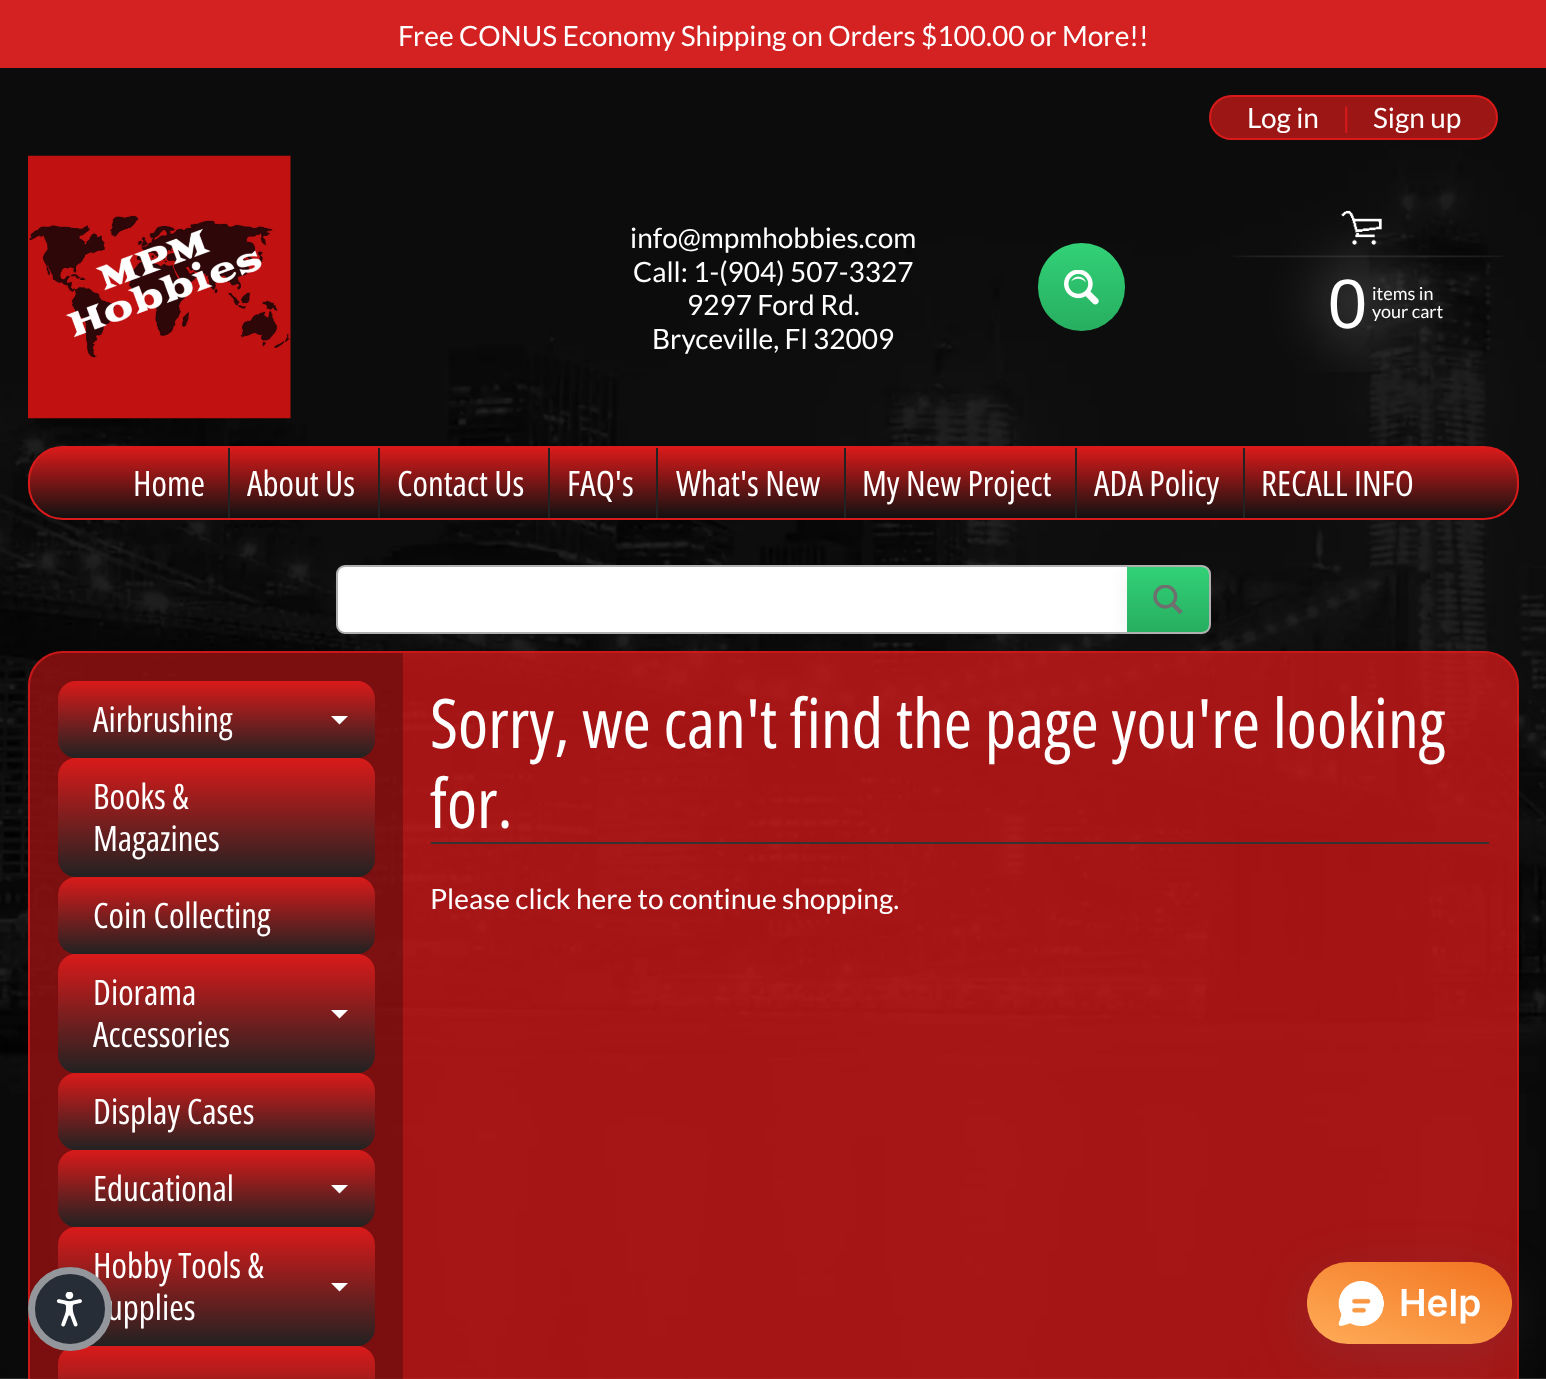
<!DOCTYPE html>
<meta charset="utf-8">
<style>body { margin: 0 } canvas { display: block }</style>
<canvas id="canvas" width="1546" height="1379"></canvas>
<script type="module">
  const canvas = document.getElementById("canvas");
  const g = canvas.getContext("2d");
  g.miterLimit = 4;
  g.fontKerning = "normal";
  function drawText(s, x, y, [font, color]) {
    g.font = font;
    g.fillStyle = color;
    g.fillText(s, x, y);
  }
  function fillBox(x, y, w, h, color) {
    g.fillStyle = color;
    g.fillRect(x, y, w, h);
  }
  function fillRounded(x, y, w, h, r, color) {
    g.fillStyle = color;
    g.beginPath();
    g.roundRect(x, y, w, h, r);
    g.fill();
  }
  async function drawPicture(src, x, y, w, h) {
    const img = new Image();
    img.src = src;
    await img.decode();
    g.drawImage(img, x, y, w, h);
  }
  let gradient;

  const s1 = ["35px Open Sans Condensed", "#FFFFFF"];
  const s2 = ["28px Lato", "#FFFFFF"];
  const s3 = ["28px Lato", "#DA1A1A"];
  const s4 = ["70px Liberation Sans", "#FFFFFF"];
  const s5 = ["18px Lato", "#FFFFFF"];
  const s6 = ["68.4px Open Sans Condensed", "#FFFFFF"];
  const s7 = ["600 37px Inter", "#FFFFFF"];

  fillBox(0, 0, 1546, 1379, "#FFFFFF");
  await drawPicture("pic1.png", 0, 68, 1546, 1311);
  fillRounded(28, 651, 1491, 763, 35, "rgba(218, 26, 26, 0.75)");
  g.beginPath();
  g.roundRect(29, 652, 1489, 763, 34);
  g.strokeStyle = "rgba(218, 26, 26, 0.7)";
  g.lineWidth = 2;
  g.stroke();
  g.fillStyle = "rgba(0, 0, 0, 0.25)";
  g.beginPath();
  g.moveTo(63, 653);
  g.lineTo(403, 653);
  g.lineTo(403, 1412);
  g.lineTo(63, 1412);
  g.bezierCurveTo(45, 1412, 30, 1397, 30, 1379);
  g.lineTo(30, 686);
  g.bezierCurveTo(30, 668, 45, 653, 63, 653);
  g.closePath();
  g.fill();
  gradient = g.createLinearGradient(216, 1227, 216, 1346);
  gradient.addColorStop(0, "#DA1A1A");
  gradient.addColorStop(1, "#222222");
  g.fillStyle = gradient;
  g.beginPath();
  g.roundRect(58, 1227, 317, 119, 18);
  g.fill();
  drawText("Hobby Tools &", 93, 1278, s1);
  drawText("upplies", 107, 1320, s1);
  gradient = g.createLinearGradient(216, 1346, 216, 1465);
  gradient.addColorStop(0, "#DA1A1A");
  gradient.addColorStop(1, "#222222");
  g.fillStyle = gradient;
  g.beginPath();
  g.roundRect(58, 1346, 317, 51, 18);
  g.fill();
  g.fillStyle = "#272D36";
  g.beginPath();
  g.arc(70, 1309, 42, 0, Math.PI * 2);
  g.fill();
  g.beginPath();
  g.arc(70, 1309, 38.5, 0, Math.PI * 2);
  g.strokeStyle = "rgba(255, 255, 255, 0.5)";
  g.lineWidth = 7;
  g.stroke();
  await drawPicture("pic2.png", 56, 1292, 26, 35);
  fillBox(0, 0, 1546, 68, "#D42121");
  drawText("Free CONUS Economy Shipping on Orders $100.00 or More!!", 398, 46, s2);
  await drawPicture("pic3.png", 28, 155, 263, 264);
  drawText("info@mpmhobbies.com", 630, 248, s2);
  drawText("Call: 1-(904) 507-3327", 633, 282, s2);
  drawText("9297 Ford Rd.", 687, 315, s2);
  drawText("Bryceville, Fl 32009", 652, 349, s2);
  g.fillStyle = "#9C1616";
  g.beginPath();
  g.roundRect(1210, 96, 287, 43, 21.5);
  g.fill();
  g.strokeStyle = "#DA1A1A";
  g.lineWidth = 2;
  g.stroke();
  drawText("Log in", 1247, 128, s2);
  drawText("|", 1342, 128, s3);
  drawText("Sign up", 1373, 128, s2);
  gradient = g.createLinearGradient(1082, 243, 1082, 331);
  gradient.addColorStop(0, "#32D177");
  gradient.addColorStop(1, "#27AE60");
  g.fillStyle = gradient;
  g.beginPath();
  g.roundRect(1038, 243, 87, 88, 43.5);
  g.fill();
  await drawPicture("pic4.png", 1064, 270, 35, 35);
  await drawPicture("pic5.png", 1232, 210, 273, 162);
  drawText("0", 1328, 328, s4);
  drawText("items in", 1372, 300, s5);
  drawText("your cart", 1372, 318, s5);
  g.save();
  g.beginPath();
  g.roundRect(28, 446, 1491, 74, 35);
  g.clip();
  gradient = g.createLinearGradient(774, 448, 774, 518);
  gradient.addColorStop(0, "#DA1A1A");
  gradient.addColorStop(1, "#111111");
  g.fillStyle = gradient;
  g.fillRect(28, 448, 1491, 70);
  g.restore();
  g.beginPath();
  g.roundRect(29, 447, 1489, 72, 34);
  g.stroke();
  drawText("Home", 133, 496, s1);
  fillBox(228, 448, 2, 70, "#222222");
  drawText("About Us", 247, 496, s1);
  fillBox(378, 448, 2, 70, "#222222");
  drawText("Contact Us", 397, 496, s1);
  fillBox(548, 448, 2, 70, "#222222");
  drawText("FAQ's", 567, 496, s1);
  fillBox(656, 448, 2, 70, "#222222");
  drawText("What's New", 676, 496, s1);
  fillBox(844, 448, 2, 70, "#222222");
  drawText("My New Project", 862, 496, s1);
  fillBox(1075, 448, 2, 70, "#222222");
  drawText("ADA Policy", 1094, 496, s1);
  fillBox(1243, 448, 2, 70, "#222222");
  drawText("RECALL INFO", 1261, 496, s1);
  g.beginPath();
  g.roundRect(337, 566, 873, 67, 8);
  g.fill();
  g.strokeStyle = "#B0B0B0";
  g.stroke();
  g.save();
  g.beginPath();
  g.roundRect(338, 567, 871, 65, 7);
  g.clip();
  g.fillStyle = "rgba(0, 0, 0, 0.1)";
  g.filter = "blur(10.5px)";
  g.beginPath();
  g.rect(1132, 572, 83, 65);
  g.fill();
  g.filter = "none";
  g.restore();
  gradient = g.createLinearGradient(1168, 567, 1168, 632);
  gradient.addColorStop(0, "#32D177");
  gradient.addColorStop(1, "#27AE60");
  g.fillStyle = gradient;
  g.beginPath();
  g.roundRect(1127, 567, 82, 65, [0, 7, 7, 0]);
  g.fill();
  await drawPicture("pic6.png", 1153, 585, 30, 29);
  gradient = g.createLinearGradient(216, 681, 216, 758);
  gradient.addColorStop(0, "#DA1A1A");
  gradient.addColorStop(1, "#222222");
  g.fillStyle = gradient;
  g.beginPath();
  g.roundRect(58, 681, 317, 77, 18);
  g.fill();
  drawText("Airbrushing", 93, 732, s1);
  g.beginPath();
  g.moveTo(331, 716);
  g.lineTo(348, 716);
  g.lineTo(339.5, 724.5);
  g.closePath();
  g.fill();
  gradient = g.createLinearGradient(216, 758, 216, 877);
  gradient.addColorStop(0, "#DA1A1A");
  gradient.addColorStop(1, "#222222");
  g.fillStyle = gradient;
  g.beginPath();
  g.roundRect(58, 758, 317, 119, 18);
  g.fill();
  drawText("Books &", 93, 809, s1);
  drawText("Magazines", 93, 851, s1);
  gradient = g.createLinearGradient(216, 877, 216, 954);
  gradient.addColorStop(0, "#DA1A1A");
  gradient.addColorStop(1, "#222222");
  g.fillStyle = gradient;
  g.beginPath();
  g.roundRect(58, 877, 317, 77, 18);
  g.fill();
  drawText("Coin Collecting", 93, 928, s1);
  gradient = g.createLinearGradient(216, 954, 216, 1073);
  gradient.addColorStop(0, "#DA1A1A");
  gradient.addColorStop(1, "#222222");
  g.fillStyle = gradient;
  g.beginPath();
  g.roundRect(58, 954, 317, 119, 18);
  g.fill();
  drawText("Diorama", 93, 1005, s1);
  g.beginPath();
  g.moveTo(331, 1010);
  g.lineTo(348, 1010);
  g.lineTo(339.5, 1018.5);
  g.closePath();
  g.fill();
  drawText("Accessories", 93, 1047, s1);
  gradient = g.createLinearGradient(216, 1073, 216, 1150);
  gradient.addColorStop(0, "#DA1A1A");
  gradient.addColorStop(1, "#222222");
  g.fillStyle = gradient;
  g.beginPath();
  g.roundRect(58, 1073, 317, 77, 18);
  g.fill();
  drawText("Display Cases", 93, 1124, s1);
  gradient = g.createLinearGradient(216, 1150, 216, 1227);
  gradient.addColorStop(0, "#DA1A1A");
  gradient.addColorStop(1, "#222222");
  g.fillStyle = gradient;
  g.beginPath();
  g.roundRect(58, 1150, 317, 77, 18);
  g.fill();
  drawText("Educational", 93, 1201, s1);
  g.beginPath();
  g.moveTo(331, 1185);
  g.lineTo(348, 1185);
  g.lineTo(339.5, 1193.5);
  g.closePath();
  g.fill();
  g.beginPath();
  g.moveTo(331, 1283);
  g.lineTo(348, 1283);
  g.lineTo(339.5, 1291.5);
  g.closePath();
  g.fill();
  fillBox(431, 842, 1058, 2, "#333333");
  drawText("Sorry, we can't find the page you're looking", 430, 748, s6);
  drawText("for.", 430, 828, s6);
  drawText("Please click here to continue shopping.", 430, 909, s2);
  g.fillStyle = "rgba(100, 100, 111, 0.2)";
  g.filter = "blur(25.5px)";
  g.beginPath();
  g.roundRect(1307, 1274, 205, 82, 41);
  g.fill();
  g.filter = "none";
  gradient = g.createLinearGradient(1433, 1235, 1386, 1371);
  gradient.addColorStop(0, "#F27521");
  gradient.addColorStop(1, "#FFAC58");
  g.fillStyle = gradient;
  g.beginPath();
  g.roundRect(1307, 1262, 205, 82, 41);
  g.fill();
  g.beginPath();
  g.ellipse(1409.5, 1303, 102.5, 41, 0, 0, Math.PI * 2);
  g.fill();
  await drawPicture("pic7.png", 1338, 1281, 46, 45);
  drawText("Help", 1399, 1316, s7);
</script>
